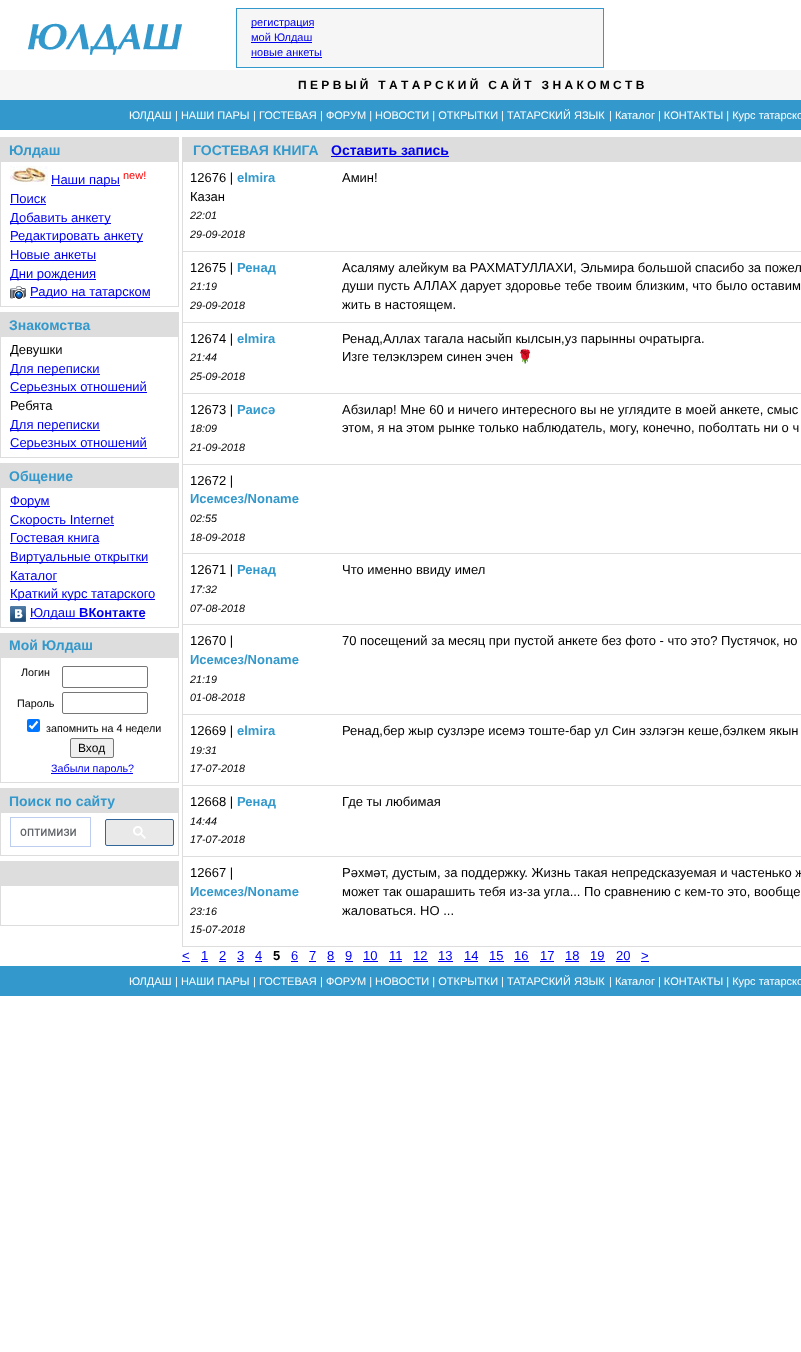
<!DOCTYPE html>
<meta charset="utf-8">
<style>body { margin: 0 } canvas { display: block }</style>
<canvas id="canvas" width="801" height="1352"></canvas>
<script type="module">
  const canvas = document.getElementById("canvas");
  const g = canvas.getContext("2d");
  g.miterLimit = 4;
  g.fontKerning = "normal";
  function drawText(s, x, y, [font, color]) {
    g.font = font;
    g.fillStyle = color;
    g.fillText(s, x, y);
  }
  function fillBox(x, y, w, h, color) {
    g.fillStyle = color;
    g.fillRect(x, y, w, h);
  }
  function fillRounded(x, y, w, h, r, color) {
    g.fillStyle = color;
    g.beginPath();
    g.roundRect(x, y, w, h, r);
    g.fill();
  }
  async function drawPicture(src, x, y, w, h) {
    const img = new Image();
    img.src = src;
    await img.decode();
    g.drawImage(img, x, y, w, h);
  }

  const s1 = ["11px Liberation Sans", "#0000EE"];
  const s2 = ["bold 12px Liberation Sans", "#000000"];
  const s3 = ["11px Liberation Sans", "#FFFFFF"];
  const s4 = ["bold 14px Liberation Sans", "#3399CC"];
  const s5 = ["13px Liberation Sans", "#0000EE"];
  const s6 = ["11px Liberation Sans", "#FF0000"];
  const s7 = ["13px Liberation Sans", "#000000"];
  const s8 = ["bold 13px Liberation Sans", "#0000EE"];
  const s9 = ["10.75px Liberation Sans", "#000000"];
  const s10 = ["12px Liberation Sans", "#000000"];
  const s11 = ["10.75px Liberation Sans", "#0000EE"];
  const s12 = ["bold 14px Liberation Sans", "#0000EE"];
  const s13 = ["bold 13px Liberation Sans", "#3399CC"];
  const s14 = ["italic 10.75px Liberation Sans", "#000000"];
  const s15 = ["13px Noto Color Emoji", "#000000"];
  const s16 = ["bold 13px Liberation Sans", "#000000"];

  fillBox(0, 0, 801, 1352, "#FFFFFF");
  await drawPicture("pic1.png", 28, 23, 154, 32);
  fillBox(236, 8, 368, 60, "#3399CC");
  fillBox(237, 9, 366, 58, "#F7F6F6");
  fillBox(251, 27, 63, 1, "#0000EE");
  drawText("регистрация", 251, 26, s1);
  fillBox(251, 42, 61, 1, "#0000EE");
  drawText("мой Юлдаш", 251, 41, s1);
  drawText("новые анкеты", 251, 56, s1);
  fillBox(251, 57, 71, 1, "#0000EE");
  fillBox(0, 70, 801, 30, "#F7F6F6");
  drawText("П Е Р В Ы Й   Т А Т А Р С К И Й   С А Й Т   З Н А К О М С Т В", 298, 89, s2);
  fillBox(0, 100, 801, 30, "#3399CC");
  drawText("ЮЛДАШ", 129, 119, s3);
  drawText("| НАШИ ПАРЫ", 175, 119, s3);
  drawText("| ГОСТЕВАЯ", 253, 119, s3);
  drawText("| ФОРУМ | НОВОСТИ | ОТКРЫТКИ | ТАТАРСКИЙ ЯЗЫК", 320, 119, s3);
  drawText("| Каталог | КОНТАКТЫ | Курс татарско", 609, 119, s3);
  fillBox(0, 137, 179, 170, "#DDDDDD");
  drawText("Юлдаш", 9, 155, s4);
  fillBox(1, 162, 177, 144, "#FFFFFF");
  await drawPicture("pic2.png", 10, 166, 38, 19);
  fillBox(51, 185, 69, 1, "#0000EE");
  drawText("Наши пары", 51, 184, s5);
  drawText("new!", 123, 179, s6);
  drawText("Поиск", 10, 203, s5);
  fillBox(10, 204, 36, 1, "#0000EE");
  fillBox(10, 223, 101, 1, "#0000EE");
  drawText("Добавить анкету", 10, 222, s5);
  fillBox(10, 241, 133, 1, "#0000EE");
  drawText("Редактировать анкету", 10, 240, s5);
  drawText("Новые анкеты", 10, 259, s5);
  fillBox(10, 260, 86, 1, "#0000EE");
  fillBox(10, 279, 86, 1, "#0000EE");
  drawText("Дни рождения", 10, 278, s5);
  await drawPicture("pic3.png", 10, 286, 16, 13);
  fillBox(30, 297, 120, 1, "#0000EE");
  drawText("Радио на татарском", 30, 296, s5);
  fillBox(0, 312, 179, 146, "#DDDDDD");
  drawText("Знакомства", 9, 330, s4);
  fillBox(1, 337, 177, 120, "#FFFFFF");
  drawText("Девушки", 10, 354, s7);
  fillBox(10, 374, 90, 1, "#0000EE");
  drawText("Для переписки", 10, 373, s5);
  fillBox(10, 392, 137, 1, "#0000EE");
  drawText("Серьезных отношений", 10, 391, s5);
  drawText("Ребята", 10, 410, s7);
  fillBox(10, 430, 90, 1, "#0000EE");
  drawText("Для переписки", 10, 429, s5);
  fillBox(10, 448, 137, 1, "#0000EE");
  drawText("Серьезных отношений", 10, 447, s5);
  fillBox(0, 463, 179, 165, "#DDDDDD");
  drawText("Общение", 9, 481, s4);
  fillBox(1, 488, 177, 139, "#FFFFFF");
  fillBox(10, 506, 40, 1, "#0000EE");
  drawText("Форум", 10, 505, s5);
  fillBox(10, 525, 104, 1, "#0000EE");
  drawText("Скорость Internet", 10, 524, s5);
  drawText("Гостевая книга", 10, 542, s5);
  fillBox(10, 543, 89, 1, "#0000EE");
  fillBox(10, 562, 138, 1, "#0000EE");
  drawText("Виртуальные открытки", 10, 561, s5);
  drawText("Каталог", 10, 580, s5);
  fillBox(10, 581, 47, 1, "#0000EE");
  fillBox(10, 599, 145, 1, "#0000EE");
  drawText("Краткий курс татарского", 10, 598, s5);
  await drawPicture("pic4.png", 10, 606, 16, 16);
  fillBox(30, 618, 115, 1, "#0000EE");
  drawText("Юлдаш", 30, 617, s5);
  drawText("ВКонтакте", 79, 617, s8);
  fillBox(0, 633, 179, 150, "#DDDDDD");
  drawText("Мой Юлдаш", 9, 650, s4);
  fillBox(1, 658, 177, 124, "#FFFFFF");
  drawText("Логин", 21, 676, s9);
  g.beginPath();
  g.roundRect(62.5, 666.5, 85, 21, 1.5);
  g.strokeStyle = "#767676";
  g.stroke();
  drawText("Пароль", 17, 707, s9);
  g.beginPath();
  g.roundRect(62.5, 692.5, 85, 21, 1.5);
  g.stroke();
  fillRounded(27, 719, 13, 13, 2, "#0075FF");
  g.beginPath();
  g.moveTo(29.5, 725.5);
  g.lineTo(32, 728);
  g.lineTo(37.5, 721.5);
  g.strokeStyle = "#FFFFFF";
  g.lineWidth = 2.1;
  g.stroke();
  drawText("запомнить на 4 недели", 46, 732, s9);
  g.fillStyle = "#EFEFEF";
  g.beginPath();
  g.roundRect(70.5, 738.5, 43, 19, 1.5);
  g.fill();
  g.strokeStyle = "#767676";
  g.lineWidth = 1;
  g.stroke();
  drawText("Вход", 78, 752, s10);
  fillBox(51, 773, 82, 1, "#0000EE");
  drawText("Забыли пароль?", 51, 772, s11);
  fillBox(0, 788, 179, 68, "#DDDDDD");
  drawText("Поиск по сайту", 9, 806, s4);
  fillBox(1, 813, 177, 42, "#FFFFFF");
  g.strokeStyle = "#BCCDF0";
  g.strokeRect(10.5, 817.5, 80, 29);
  await drawPicture("pic5.png", 20, 828, 56, 8);
  g.fillStyle = "#E9E9E9";
  g.beginPath();
  g.roundRect(105.5, 819.5, 68, 26, 1.5);
  g.fill();
  g.strokeStyle = "#336699";
  g.stroke();
  await drawPicture("pic6.png", 133, 826, 13, 13);
  fillBox(0, 861, 179, 65, "#DDDDDD");
  fillBox(1, 886, 177, 39, "#FFFFFF");
  fillBox(182, 137, 619, 810, "#DDDDDD");
  drawText("ГОСТЕВАЯ КНИГА", 193, 155, s4);
  drawText("Оставить запись", 331, 155, s12);
  fillBox(331, 156, 118, 1, "#0000EE");
  fillBox(183, 162, 618, 89, "#FFFFFF");
  drawText("12676 |", 190, 182, s7);
  drawText("elmira", 237, 182, s13);
  drawText("Казан", 190, 201, s7);
  drawText("22:01", 190, 219, s14);
  drawText("29-09-2018", 190, 238, s14);
  drawText("Амин!", 342, 182, s7);
  fillBox(183, 252, 618, 70, "#FFFFFF");
  drawText("12675 |", 190, 272, s7);
  drawText("Ренад", 237, 272, s13);
  drawText("21:19", 190, 290, s14);
  drawText("29-09-2018", 190, 309, s14);
  drawText("Асаляму алейкум ва РАХМАТУЛЛАХИ, Эльмира большой спасибо за пожел", 342, 272, s7);
  drawText("души пусть АЛЛАХ дарует здоровье тебе твоим близким, что было оставим", 342, 290, s7);
  drawText("жить в настоящем.", 342, 309, s7);
  fillBox(183, 323, 618, 70, "#FFFFFF");
  drawText("12674 |", 190, 343, s7);
  drawText("elmira", 237, 343, s13);
  drawText("21:44", 190, 361, s14);
  drawText("25-09-2018", 190, 380, s14);
  drawText("Ренад,Аллах тагала насыйп кылсын,уз парынны очратырга.", 342, 343, s7);
  drawText("Изге телэклэрем синен эчен", 342, 361, s7);
  drawText("🌹", 517, 361, s15);
  fillBox(183, 394, 618, 70, "#FFFFFF");
  drawText("12673 |", 190, 414, s7);
  drawText("Раисә", 237, 414, s13);
  drawText("18:09", 190, 432, s14);
  drawText("21-09-2018", 190, 451, s14);
  drawText("Абзилар! Мне 60 и ничего интересного вы не углядите в моей анкете, смыс", 342, 414, s7);
  drawText("этом, я на этом рынке только наблюдатель, могу, конечно, поболтать ни о ч", 342, 432, s7);
  fillBox(183, 465, 618, 88, "#FFFFFF");
  drawText("12672 |", 190, 485, s7);
  drawText("Исемсез/Noname", 190, 503, s13);
  drawText("02:55", 190, 522, s14);
  drawText("18-09-2018", 190, 541, s14);
  fillBox(183, 554, 618, 70, "#FFFFFF");
  drawText("12671 |", 190, 574, s7);
  drawText("Ренад", 237, 574, s13);
  drawText("17:32", 190, 593, s14);
  drawText("07-08-2018", 190, 612, s14);
  drawText("Что именно ввиду имел", 342, 574, s7);
  fillBox(183, 625, 618, 89, "#FFFFFF");
  drawText("12670 |", 190, 645, s7);
  drawText("Исемсез/Noname", 190, 664, s13);
  drawText("21:19", 190, 683, s14);
  drawText("01-08-2018", 190, 701, s14);
  drawText("70 посещений за месяц при пустой анкете без фото - что это? Пустячок, но", 342, 645, s7);
  fillBox(183, 715, 618, 70, "#FFFFFF");
  drawText("12669 |", 190, 735, s7);
  drawText("elmira", 237, 735, s13);
  drawText("19:31", 190, 754, s14);
  drawText("17-07-2018", 190, 772, s14);
  drawText("Ренад,бер жыр сузлэре исемэ тоште-бар ул Син эзлэгэн кеше,бэлкем якын", 342, 735, s7);
  fillBox(183, 786, 618, 70, "#FFFFFF");
  drawText("12668 |", 190, 806, s7);
  drawText("Ренад", 237, 806, s13);
  drawText("14:44", 190, 825, s14);
  drawText("17-07-2018", 190, 843, s14);
  drawText("Где ты любимая", 342, 806, s7);
  fillBox(183, 857, 618, 89, "#FFFFFF");
  drawText("12667 |", 190, 877, s7);
  drawText("Исемсез/Noname", 190, 896, s13);
  drawText("23:16", 190, 915, s14);
  drawText("15-07-2018", 190, 933, s14);
  drawText("Рәхмәт, дустым, за поддержку. Жизнь такая непредсказуемая и частенько ж", 342, 877, s7);
  drawText("может так ошарашить тебя из-за угла... По сравнению с кем-то это, вообще", 342, 896, s7);
  drawText("жаловаться. НО ...", 342, 915, s7);
  drawText("<", 182, 960, s5);
  fillBox(182, 961, 8, 1, "#0000EE");
  drawText("1", 201, 960, s5);
  fillBox(201, 961, 7, 1, "#0000EE");
  drawText("2", 219, 960, s5);
  fillBox(219, 961, 7, 1, "#0000EE");
  drawText("3", 237, 960, s5);
  fillBox(237, 961, 7, 1, "#0000EE");
  drawText("4", 255, 960, s5);
  fillBox(255, 961, 7, 1, "#0000EE");
  drawText("5", 273, 960, s16);
  drawText("6", 291, 960, s5);
  fillBox(291, 961, 7, 1, "#0000EE");
  drawText("7", 309, 960, s5);
  fillBox(309, 961, 7, 1, "#0000EE");
  drawText("8", 327, 960, s5);
  fillBox(327, 961, 8, 1, "#0000EE");
  drawText("9", 345, 960, s5);
  fillBox(345, 961, 8, 1, "#0000EE");
  drawText("10", 363, 960, s5);
  fillBox(363, 961, 15, 1, "#0000EE");
  drawText("11", 389, 960, s5);
  fillBox(389, 961, 13, 1, "#0000EE");
  drawText("12", 413, 960, s5);
  fillBox(413, 961, 15, 1, "#0000EE");
  drawText("13", 438, 960, s5);
  fillBox(438, 961, 15, 1, "#0000EE");
  drawText("14", 464, 960, s5);
  fillBox(464, 961, 14, 1, "#0000EE");
  drawText("15", 489, 960, s5);
  fillBox(489, 961, 15, 1, "#0000EE");
  drawText("16", 514, 960, s5);
  fillBox(514, 961, 15, 1, "#0000EE");
  drawText("17", 540, 960, s5);
  fillBox(540, 961, 14, 1, "#0000EE");
  drawText("18", 565, 960, s5);
  fillBox(565, 961, 14, 1, "#0000EE");
  drawText("19", 590, 960, s5);
  fillBox(590, 961, 15, 1, "#0000EE");
  drawText("20", 616, 960, s5);
  fillBox(616, 961, 14, 1, "#0000EE");
  drawText(">", 641, 960, s5);
  fillBox(641, 961, 8, 1, "#0000EE");
  fillBox(0, 966, 801, 30, "#3399CC");
  drawText("ЮЛДАШ", 129, 985, s3);
  drawText("| НАШИ ПАРЫ", 175, 985, s3);
  drawText("| ГОСТЕВАЯ", 253, 985, s3);
  drawText("| ФОРУМ | НОВОСТИ | ОТКРЫТКИ | ТАТАРСКИЙ ЯЗЫК", 320, 985, s3);
  drawText("| Каталог | КОНТАКТЫ | Курс татарско", 609, 985, s3);
</script>
